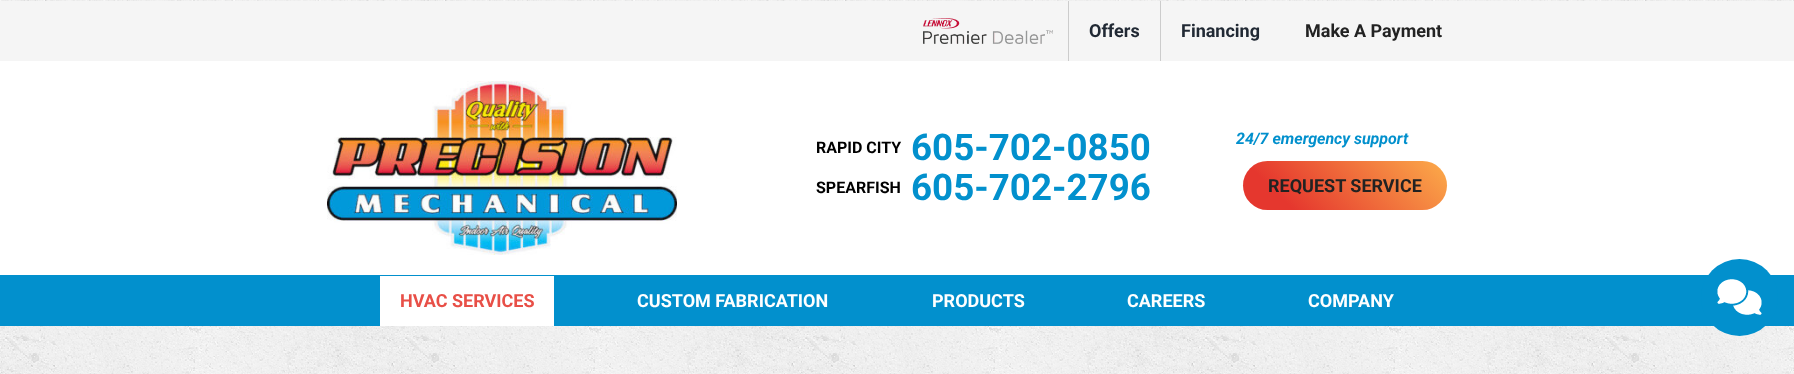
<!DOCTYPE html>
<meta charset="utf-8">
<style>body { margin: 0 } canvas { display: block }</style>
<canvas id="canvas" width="1794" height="374"></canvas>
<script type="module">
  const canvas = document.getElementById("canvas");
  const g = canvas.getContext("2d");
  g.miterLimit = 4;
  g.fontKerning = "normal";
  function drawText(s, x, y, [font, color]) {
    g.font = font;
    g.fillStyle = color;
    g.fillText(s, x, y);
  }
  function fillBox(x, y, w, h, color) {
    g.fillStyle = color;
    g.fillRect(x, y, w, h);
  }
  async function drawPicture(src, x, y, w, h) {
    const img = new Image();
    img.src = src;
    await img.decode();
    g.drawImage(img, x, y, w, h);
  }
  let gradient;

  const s1 = ["bold 18px Roboto", "#212934"];
  const s2 = ["bold 18px Roboto", "#222222"];
  const s3 = ["bold 16px Roboto", "#000000"];
  const s4 = ["bold 36.75px Roboto", "#0290CD"];
  const s5 = ["italic bold 16px Roboto", "#0290CD"];
  const s6 = ["bold 18px Roboto", "#E84F47"];
  const s7 = ["bold 18px Roboto", "#FFFFFF"];

  fillBox(0, 0, 1794, 374, "#FFFFFF");
  await drawPicture("pic1.png", 0, 0, 1794, 374);
  fillBox(0, 1, 1794, 60, "#F5F5F5");
  await drawPicture("pic2.png", 923, 18, 130, 26);
  fillBox(1068, 1, 1, 60, "#CCCCCC");
  drawText("Offers", 1089, 37, s1);
  fillBox(1160, 1, 1, 60, "#CCCCCC");
  drawText("Financing", 1181, 37, s1);
  drawText("Make A Payment", 1305, 37, s2);
  fillBox(0, 61, 1794, 214, "#FFFFFF");
  await drawPicture("pic3.png", 327, 81, 350, 174);
  drawText("RAPID CITY", 816, 153, s3);
  drawText("605-702-0850", 911, 160, s4);
  drawText("SPEARFISH", 816, 193, s3);
  drawText("605-702-2796", 911, 200, s4);
  drawText("24/7 emergency support", 1236, 144, s5);
  gradient = g.createLinearGradient(1282, 249, 1408, 122);
  gradient.addColorStop(0.2, "#E5372E");
  gradient.addColorStop(1, "#FCAC4A");
  g.fillStyle = gradient;
  g.beginPath();
  g.roundRect(1243, 161, 204, 49, 24.5);
  g.fill();
  drawText("REQUEST SERVICE", 1268, 192, s2);
  fillBox(0, 275, 1794, 51, "#0290CD");
  fillBox(380, 276, 174, 50, "#FFFFFF");
  drawText("HVAC SERVICES", 400, 307, s6);
  drawText("CUSTOM FABRICATION", 637, 307, s7);
  drawText("PRODUCTS", 932, 307, s7);
  drawText("CAREERS", 1127, 307, s7);
  drawText("COMPANY", 1308, 307, s7);
  g.fillStyle = "#0290CD";
  g.beginPath();
  g.arc(1739.5, 297.5, 38.5, 0, Math.PI * 2);
  g.fill();
  await drawPicture("pic4.png", 1717, 279, 45, 36);
</script>
